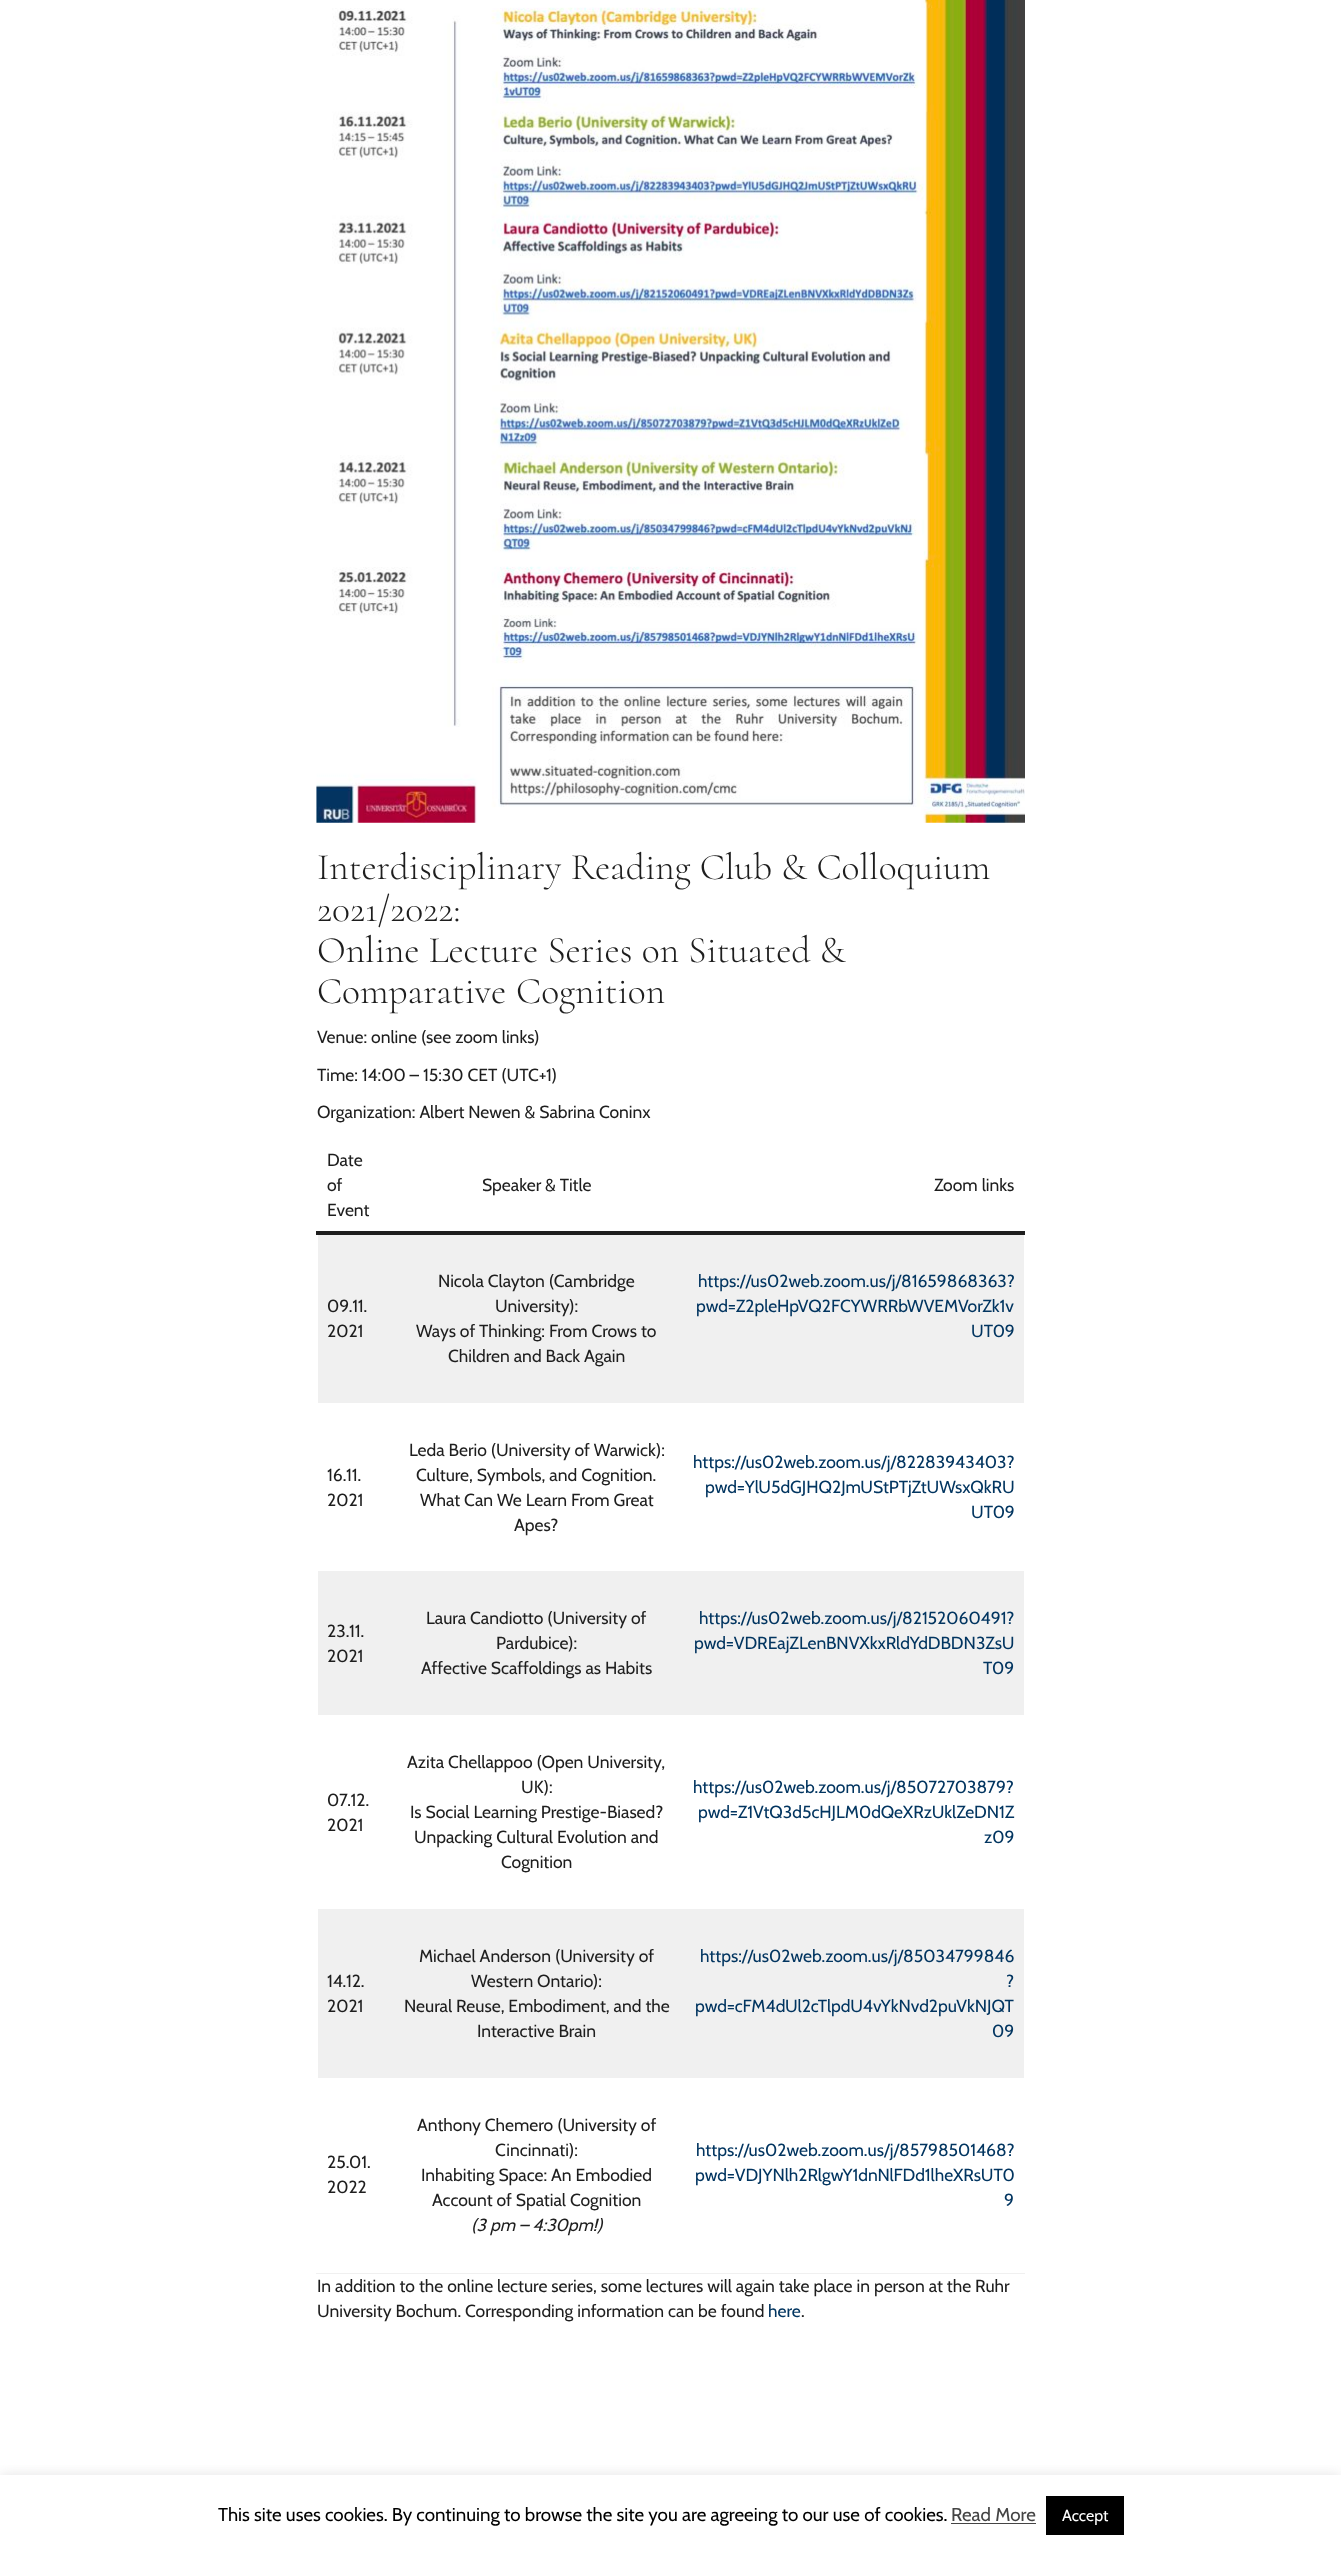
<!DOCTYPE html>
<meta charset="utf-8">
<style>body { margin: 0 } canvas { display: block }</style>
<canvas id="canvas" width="1341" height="2550"></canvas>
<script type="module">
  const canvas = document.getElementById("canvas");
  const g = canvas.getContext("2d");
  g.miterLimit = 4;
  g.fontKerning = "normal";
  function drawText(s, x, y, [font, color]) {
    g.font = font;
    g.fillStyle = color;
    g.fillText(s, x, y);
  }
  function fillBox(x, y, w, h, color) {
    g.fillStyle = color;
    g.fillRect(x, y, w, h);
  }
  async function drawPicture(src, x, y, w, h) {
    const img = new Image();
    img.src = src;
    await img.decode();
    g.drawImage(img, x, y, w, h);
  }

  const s1 = ["300 37.5px Cormorant", "#1E1E1E"];
  const s2 = ["17.5px Cabin", "#1E1E1E"];
  const s3 = ["17.5px Cabin", "#023560"];
  const s4 = ["italic 17.5px Cabin", "#1E1E1E"];
  const s5 = ["18.75px Cabin", "#000000"];
  const s6 = ["18.75px Cabin", "#444444"];
  const s7 = ["16px Cabin", "#FFFFFF"];

  fillBox(0, 0, 1341, 2550, "#FFFFFF");
  await drawPicture("pic1.png", 316, 0, 709, 823);
  g.wordSpacing = "0.5px";
  drawText("Interdisciplinary Reading Club & Colloquium", 317, 879, s1);
  g.wordSpacing = "0px";
  drawText("2021/2022:", 317, 921, s1);
  g.wordSpacing = "0.5px";
  drawText("Online Lecture Series on Situated &", 317, 962, s1);
  g.wordSpacing = "1px";
  drawText("Comparative Cognition", 317, 1003, s1);
  g.wordSpacing = "0px";
  drawText("Venue: online (see zoom links)", 317, 1043, s2);
  drawText("Time: 14:00 – 15:30 CET (UTC+1)", 317, 1081, s2);
  drawText("Organization: Albert Newen & Sabrina Coninx", 317, 1118, s2);
  fillBox(316, 2273, 709, 1, "#F0F0F0");
  fillBox(316, 1231, 709, 4, "#1E1E1E");
  drawText("Date", 327, 1166, s2);
  drawText("of", 327, 1191, s2);
  drawText("Event", 327, 1216, s2);
  drawText("Speaker & Title", 482, 1191, s2);
  drawText("Zoom links", 934, 1191, s2);
  fillBox(318, 1235, 706, 168, "#F0F0F0");
  drawText("09.11.", 327, 1312, s2);
  drawText("2021", 327, 1337, s2);
  drawText("Nicola Clayton (Cambridge", 438, 1287, s2);
  drawText("University):", 495, 1312, s2);
  drawText("Ways of Thinking: From Crows to", 416, 1337, s2);
  drawText("Children and Back Again", 448, 1362, s2);
  drawText("https://us02web.zoom.us/j/81659868363?", 698, 1287, s3);
  drawText("pwd=Z2pleHpVQ2FCYWRRbWVEMVorZk1v", 696, 1312, s3);
  drawText("UT09", 971, 1337, s3);
  drawText("16.11.", 327, 1481, s2);
  drawText("2021", 327, 1506, s2);
  drawText("Leda Berio (University of Warwick):", 409, 1456, s2);
  drawText("Culture, Symbols, and Cognition.", 416, 1481, s2);
  drawText("What Can We Learn From Great", 420, 1506, s2);
  drawText("Apes?", 514, 1531, s2);
  drawText("https://us02web.zoom.us/j/82283943403?", 693, 1468, s3);
  drawText("pwd=YlU5dGJHQ2JmUStPTjZtUWsxQkRU", 705, 1493, s3);
  drawText("UT09", 971, 1518, s3);
  fillBox(318, 1571, 706, 144, "#F0F0F0");
  drawText("23.11.", 327, 1637, s2);
  drawText("2021", 327, 1662, s2);
  drawText("Laura Candiotto (University of", 426, 1624, s2);
  drawText("Pardubice):", 496, 1649, s2);
  drawText("Affective Scaffoldings as Habits", 421, 1674, s2);
  drawText("https://us02web.zoom.us/j/82152060491?", 699, 1624, s3);
  drawText("pwd=VDREajZLenBNVXkxRldYdDBDN3ZsU", 694, 1649, s3);
  drawText("T09", 983, 1674, s3);
  drawText("07.12.", 327, 1806, s2);
  drawText("2021", 327, 1831, s2);
  drawText("Azita Chellappoo (Open University,", 407, 1768, s2);
  drawText("UK):", 521, 1793, s2);
  drawText("Is Social Learning Prestige-Biased?", 410, 1818, s2);
  drawText("Unpacking Cultural Evolution and", 414, 1843, s2);
  drawText("Cognition", 501, 1868, s2);
  drawText("https://us02web.zoom.us/j/85072703879?", 693, 1793, s3);
  drawText("pwd=Z1VtQ3d5cHJLM0dQeXRzUklZeDN1Z", 698, 1818, s3);
  drawText("z09", 984, 1843, s3);
  fillBox(318, 1909, 706, 169, "#F0F0F0");
  drawText("14.12.", 327, 1987, s2);
  drawText("2021", 327, 2012, s2);
  drawText("Michael Anderson (University of", 419, 1962, s2);
  drawText("Western Ontario):", 471, 1987, s2);
  drawText("Neural Reuse, Embodiment, and the", 404, 2012, s2);
  drawText("Interactive Brain", 477, 2037, s2);
  drawText("https://us02web.zoom.us/j/85034799846", 700, 1962, s3);
  drawText("?", 1006, 1987, s3);
  drawText("pwd=cFM4dUl2cTlpdU4vYkNvd2puVkNJQT", 695, 2012, s3);
  drawText("09", 992, 2037, s3);
  drawText("25.01.", 327, 2168, s2);
  drawText("2022", 327, 2193, s2);
  drawText("Anthony Chemero (University of", 417, 2131, s2);
  drawText("Cincinnati):", 495, 2156, s2);
  drawText("Inhabiting Space: An Embodied", 421, 2181, s2);
  drawText("Account of Spatial Cognition", 432, 2206, s2);
  drawText("(3 pm – 4:30pm!)", 471, 2231, s4);
  drawText("https://us02web.zoom.us/j/85798501468?", 696, 2156, s3);
  drawText("pwd=VDJYNlh2RlgwY1dnNlFDd1lheXRsUT0", 695, 2181, s3);
  drawText("9", 1004, 2206, s3);
  drawText("In addition to the online lecture series, some lectures will again take place in person at the Ruhr", 317, 2292, s2);
  drawText("University Bochum. Corresponding information can be found", 317, 2317, s2);
  drawText("here", 768, 2317, s3);
  drawText(".", 801, 2317, s2);
  g.save();
  g.beginPath();
  g.rect(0, 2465, 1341, 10);
  g.clip();
  g.fillStyle = "rgba(172, 171, 171, 0.3)";
  g.filter = "blur(6px)";
  g.beginPath();
  g.rect(0, 2474, 1341, 75);
  g.fill();
  g.filter = "none";
  g.restore();
  drawText("This site uses cookies. By continuing to browse the site you are agreeing to our use of cookies.", 218, 2521, s5);
  drawText("Read More", 951, 2521, s6);
  fillBox(951, 2523, 85, 1, "#444444");
  fillBox(1046, 2496, 78, 39, "#000000");
  drawText("Accept", 1062, 2521, s7);
</script>
